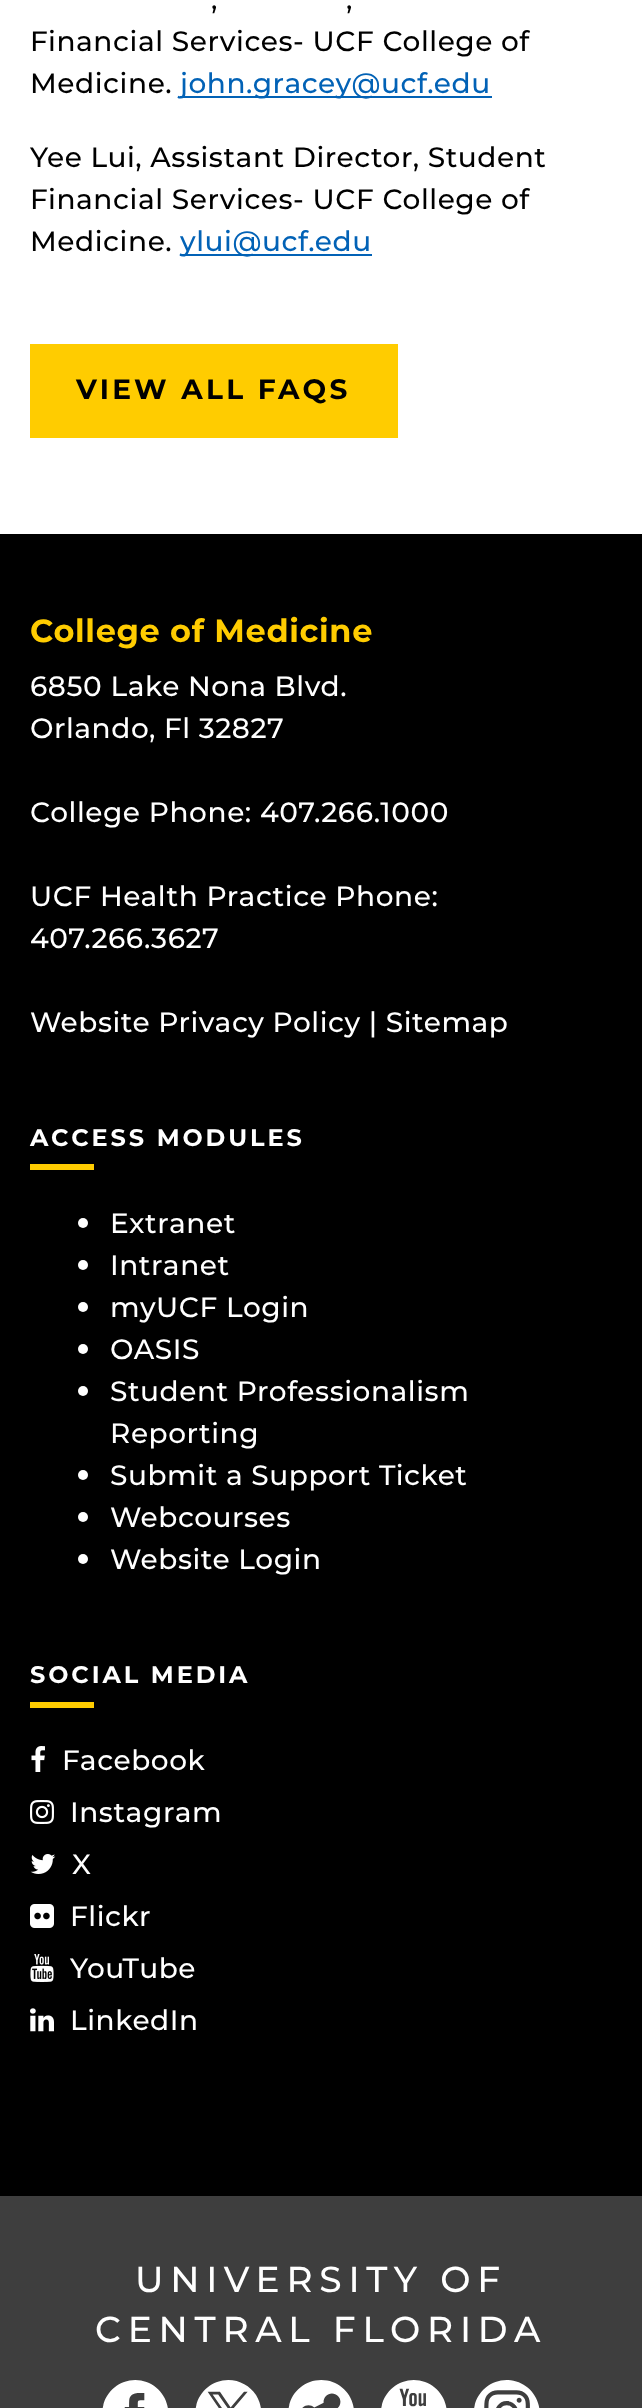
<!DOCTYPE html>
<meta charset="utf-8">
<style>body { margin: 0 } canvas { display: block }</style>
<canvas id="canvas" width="642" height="2408"></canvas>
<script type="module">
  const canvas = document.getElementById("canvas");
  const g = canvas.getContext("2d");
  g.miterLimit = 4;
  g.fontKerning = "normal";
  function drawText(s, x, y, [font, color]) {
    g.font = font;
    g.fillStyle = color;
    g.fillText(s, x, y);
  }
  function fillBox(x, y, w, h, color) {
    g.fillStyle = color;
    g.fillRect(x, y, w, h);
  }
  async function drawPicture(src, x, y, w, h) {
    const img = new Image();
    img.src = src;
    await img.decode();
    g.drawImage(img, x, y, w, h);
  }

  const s1 = ["500 28px Montserrat", "#000000"];
  const s2 = ["500 28px Montserrat", "#0262B6"];
  const s3 = ["bold 28px Montserrat", "#000000"];
  const s4 = ["bold 32px Montserrat", "#FFCC00"];
  const s5 = ["500 28px Montserrat", "#FFFFFF"];
  const s6 = ["bold 24px Montserrat", "#FFFFFF"];
  const s7 = ["500 36px Montserrat", "#FFFFFF"];

  fillBox(0, 0, 642, 2408, "#FFFFFF");
  drawText(",", 211, 9, s1);
  drawText(",", 346, 9, s1);
  drawText("Financial Services- UCF College of", 30, 51, s1);
  drawText("Medicine.", 30, 93, s1);
  fillBox(180, 96, 312, 2, "#0262B6");
  drawText("john.gracey@ucf.edu", 180, 93, s2);
  drawText("Yee Lui, Assistant Director, Student", 30, 167, s1);
  drawText("Financial Services- UCF College of", 30, 209, s1);
  drawText("Medicine.", 30, 251, s1);
  fillBox(180, 254, 192, 2, "#0262B6");
  drawText("ylui@ucf.edu", 180, 251, s2);
  fillBox(30, 344, 368, 94, "#FFCC00");
  g.letterSpacing = "2.75px";
  drawText("VIEW ALL FAQS", 76, 399, s3);
  fillBox(0, 534, 642, 1662, "#000000");
  g.letterSpacing = "0px";
  drawText("College of Medicine", 30, 642, s4);
  drawText("6850 Lake Nona Blvd.", 30, 696, s5);
  drawText("Orlando, Fl 32827", 30, 738, s5);
  drawText("College Phone: 407.266.1000", 30, 822, s5);
  drawText("UCF Health Practice Phone:", 30, 906, s5);
  drawText("407.266.3627", 30, 948, s5);
  drawText("Website Privacy Policy | Sitemap", 30, 1032, s5);
  g.letterSpacing = "2.4px";
  drawText("ACCESS MODULES", 30, 1146, s6);
  fillBox(30, 1164, 64, 6, "#FFCC00");
  g.fillStyle = "#FFFFFF";
  g.beginPath();
  g.arc(83, 1223, 5, 0, Math.PI * 2);
  g.fill();
  g.letterSpacing = "0px";
  drawText("Extranet", 110, 1233, s5);
  g.beginPath();
  g.arc(83, 1265, 5, 0, Math.PI * 2);
  g.fill();
  drawText("Intranet", 110, 1275, s5);
  g.beginPath();
  g.arc(83, 1307, 5, 0, Math.PI * 2);
  g.fill();
  drawText("myUCF Login", 110, 1317, s5);
  g.beginPath();
  g.arc(83, 1349, 5, 0, Math.PI * 2);
  g.fill();
  drawText("OASIS", 110, 1359, s5);
  g.beginPath();
  g.arc(83, 1391, 5, 0, Math.PI * 2);
  g.fill();
  drawText("Student Professionalism", 110, 1401, s5);
  drawText("Reporting", 110, 1443, s5);
  g.beginPath();
  g.arc(83, 1475, 5, 0, Math.PI * 2);
  g.fill();
  drawText("Submit a Support Ticket", 110, 1485, s5);
  g.beginPath();
  g.arc(83, 1517, 5, 0, Math.PI * 2);
  g.fill();
  drawText("Webcourses", 110, 1527, s5);
  g.beginPath();
  g.arc(83, 1559, 5, 0, Math.PI * 2);
  g.fill();
  drawText("Website Login", 110, 1569, s5);
  g.letterSpacing = "2.4px";
  drawText("SOCIAL MEDIA", 30, 1683, s6);
  fillBox(30, 1702, 64, 6, "#FFCC00");
  await drawPicture("pic1.png", 31, 1746, 14, 26);
  g.letterSpacing = "0px";
  drawText("Facebook", 62, 1770, s5);
  await drawPicture("pic2.png", 30, 1800, 24, 24);
  drawText("Instagram", 70, 1822, s5);
  await drawPicture("pic3.png", 30, 1854, 26, 20);
  drawText("X", 72, 1874, s5);
  await drawPicture("pic4.png", 30, 1904, 24, 24);
  drawText("Flickr", 70, 1926, s5);
  await drawPicture("pic5.png", 30, 1954, 24, 28);
  drawText("YouTube", 70, 1978, s5);
  await drawPicture("pic6.png", 30, 2008, 24, 24);
  drawText("LinkedIn", 70, 2030, s5);
  fillBox(0, 2196, 642, 212, "#3E3E3E");
  g.letterSpacing = "6px";
  drawText("UNIVERSITY OF", 135, 2292, s7);
  drawText("CENTRAL FLORIDA", 95, 2342, s7);
  await drawPicture("pic7.png", 102, 2380, 66, 28);
  await drawPicture("pic8.png", 195, 2380, 66, 28);
  await drawPicture("pic9.png", 288, 2380, 66, 28);
  await drawPicture("pic10.png", 381, 2380, 66, 28);
  await drawPicture("pic11.png", 474, 2380, 66, 28);
</script>
